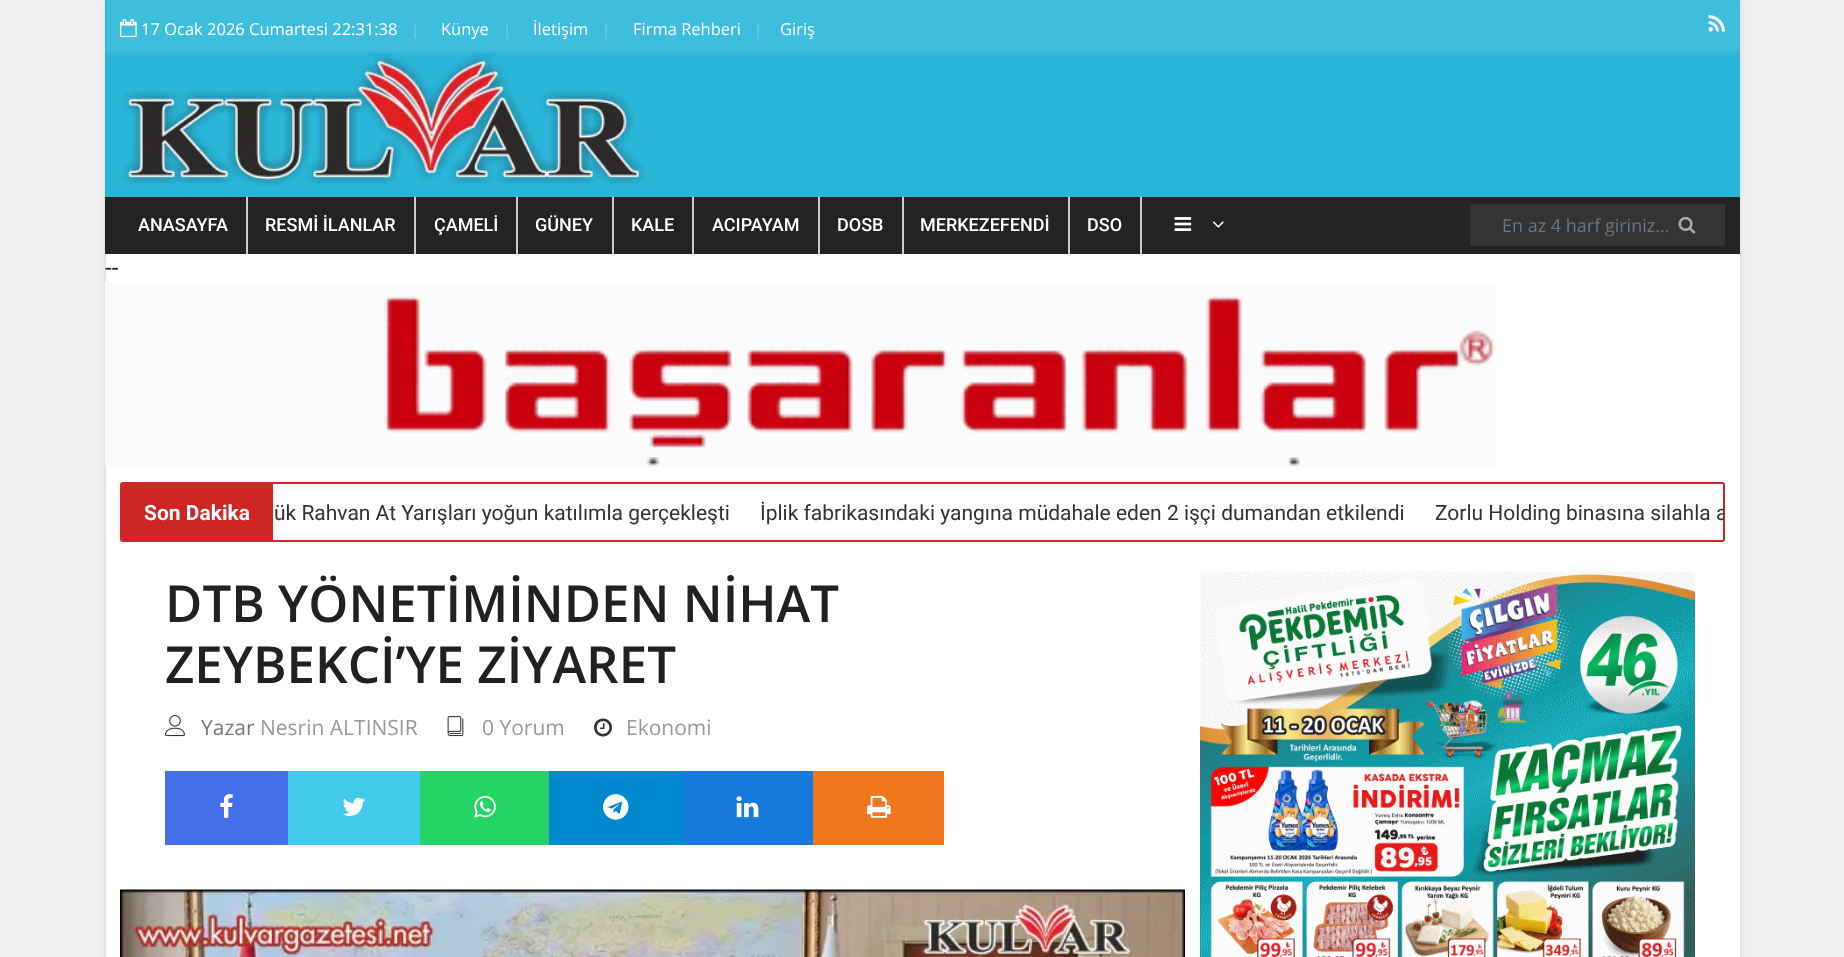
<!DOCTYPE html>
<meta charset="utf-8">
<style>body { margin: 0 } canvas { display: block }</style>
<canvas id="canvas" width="1844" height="957"></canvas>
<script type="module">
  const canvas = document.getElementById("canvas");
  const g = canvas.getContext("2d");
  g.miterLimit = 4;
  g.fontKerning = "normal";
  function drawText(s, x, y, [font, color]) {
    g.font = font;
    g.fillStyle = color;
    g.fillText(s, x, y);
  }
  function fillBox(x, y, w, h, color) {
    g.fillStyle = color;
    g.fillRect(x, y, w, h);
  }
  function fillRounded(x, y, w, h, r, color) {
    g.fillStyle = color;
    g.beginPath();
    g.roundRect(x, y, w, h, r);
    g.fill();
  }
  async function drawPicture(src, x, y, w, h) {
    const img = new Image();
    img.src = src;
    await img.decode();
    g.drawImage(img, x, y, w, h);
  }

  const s1 = ["16.5px Open Sans", "#FFFFFF"];
  const s2 = ["15px Open Sans", "#79D1E7"];
  const s3 = ["16.5px Open Sans", "#F9F9F9"];
  const s4 = ["500 18px Roboto", "#FFFFFF"];
  const s5 = ["18px Open Sans", "#6C757D"];
  const s6 = ["24px Roboto", "#212529"];
  const s7 = ["bold 21px Roboto", "#FFFFFF"];
  const s8 = ["21px Roboto", "#333333"];
  const s9 = ["600 51px Open Sans", "#212121"];
  const s10 = ["21px Open Sans", "#777777"];
  const s11 = ["21px Open Sans", "#999999"];

  fillBox(0, 0, 1844, 957, "#F1F1F1");
  g.fillStyle = "#E5E5E5";
  g.filter = "blur(7.5px)";
  g.beginPath();
  g.rect(104, 0, 1638, 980);
  g.fill();
  g.filter = "none";
  fillBox(106, 254, 1634, 703, "#FFFFFF");
  fillBox(106, 0, 1634, 51, "#3FBDDD");
  fillBox(105, 51, 1635, 2, "#3DB7D6");
  fillBox(1740, 0, 2, 957, "#E5E5E5");
  fillBox(104, 0, 2, 957, "#E5E5E5");
  fillBox(105, 0, 1, 53, "#3DBBDA");
  fillBox(105, 51, 1, 2, "#3BB5D3");
  await drawPicture("pic1.png", 120, 19, 17, 19);
  drawText("17 Ocak 2026 Cumartesi 22:31:38", 141, 35, s1);
  drawText("|", 411, 35, s2);
  drawText("Künye", 441, 35, s3);
  drawText("|", 503, 35, s2);
  drawText("İletişim", 533, 35, s3);
  drawText("|", 602, 35, s2);
  drawText("Firma Rehberi", 633, 35, s3);
  drawText("|", 754, 35, s2);
  drawText("Giriş", 780, 35, s3);
  await drawPicture("pic2.png", 1708, 15, 17, 17);
  fillBox(105, 53, 1635, 144, "#2AB6D9");
  await drawPicture("pic3.png", 122, 54, 523, 132);
  fillBox(105, 197, 1635, 57, "#232323");
  fillBox(246, 197, 2, 57, "#CCCCCC");
  drawText("ANASAYFA", 138, 231, s4);
  fillBox(414, 197, 2, 57, "#CCCCCC");
  drawText("RESMİ İLANLAR", 265, 231, s4);
  fillBox(516, 197, 2, 57, "#CCCCCC");
  drawText("ÇAMELİ", 434, 231, s4);
  fillBox(612, 197, 2, 57, "#CCCCCC");
  drawText("GÜNEY", 535, 231, s4);
  fillBox(692, 197, 2, 57, "#CCCCCC");
  drawText("KALE", 631, 231, s4);
  fillBox(818, 197, 2, 57, "#CCCCCC");
  drawText("ACIPAYAM", 712, 231, s4);
  fillBox(902, 197, 2, 57, "#CCCCCC");
  drawText("DOSB", 837, 231, s4);
  fillBox(1068, 197, 2, 57, "#CCCCCC");
  drawText("MERKEZEFENDİ", 920, 231, s4);
  fillBox(1140, 197, 2, 57, "#CCCCCC");
  drawText("DSO", 1087, 231, s4);
  await drawPicture("pic4.png", 1174, 217, 18, 14);
  await drawPicture("pic5.png", 1212, 221, 12, 7);
  fillRounded(1470, 204, 255, 42, 1.5, "#343434");
  drawText("En az 4 harf giriniz...", 1502, 232, s5);
  await drawPicture("pic6.png", 1678, 216, 18, 18);
  drawText("--", 105, 276, s6);
  await drawPicture("pic7.png", 105, 282, 1391, 185);
  g.beginPath();
  g.roundRect(121, 483, 1603, 58, 2);
  g.strokeStyle = "#CE2525";
  g.lineWidth = 2;
  g.stroke();
  g.fillStyle = "#CE2525";
  g.beginPath();
  g.roundRect(122, 483, 151, 57, [1.5, 0, 0, 1.5]);
  g.fill();
  drawText("Son Dakika", 144, 520, s7);
  drawText("ük Rahvan At Yarışları yoğun katılımla gerçekleşti", 274, 520, s8);
  drawText("İplik fabrikasındaki yangına müdahale eden 2 işçi dumandan etkilendi", 760, 520, s8);
  g.save();
  g.beginPath();
  g.roundRect(122, 483, 1602, 57, 1.5);
  g.clip();
  drawText("Zorlu Holding binasına silahla a", 1435, 520, s8);
  g.restore();
  drawText("DTB YÖNETİMİNDEN NİHAT", 165, 622, s9);
  drawText("ZEYBEKCİ’YE ZİYARET", 165, 683, s9);
  await drawPicture("pic8.png", 165, 715, 20, 22);
  drawText("Yazar", 201, 735, s10);
  drawText("Nesrin ALTINSIR", 260, 735, s11);
  await drawPicture("pic9.png", 447, 716, 17, 21);
  drawText("0 Yorum", 482, 735, s11);
  await drawPicture("pic10.png", 594, 718, 18, 19);
  drawText("Ekonomi", 626, 735, s11);
  fillBox(165, 771, 123, 74, "#436FEB");
  await drawPicture("pic11.png", 220, 794, 13, 24);
  fillBox(288, 771, 132, 74, "#43C9EB");
  await drawPicture("pic12.png", 343, 797, 22, 19);
  fillBox(420, 771, 129, 74, "#25D366");
  await drawPicture("pic13.png", 474, 795, 22, 23);
  fillBox(549, 771, 134, 74, "#0088CC");
  await drawPicture("pic14.png", 603, 794, 26, 26);
  fillBox(683, 771, 130, 74, "#1879DD");
  await drawPicture("pic15.png", 736, 796, 23, 22);
  fillBox(813, 771, 131, 74, "#F0771E");
  await drawPicture("pic16.png", 867, 795, 24, 23);
  await drawPicture("pic17.png", 120, 889, 1065, 68);
  await drawPicture("pic18.png", 1200, 571, 495, 386);
</script>
